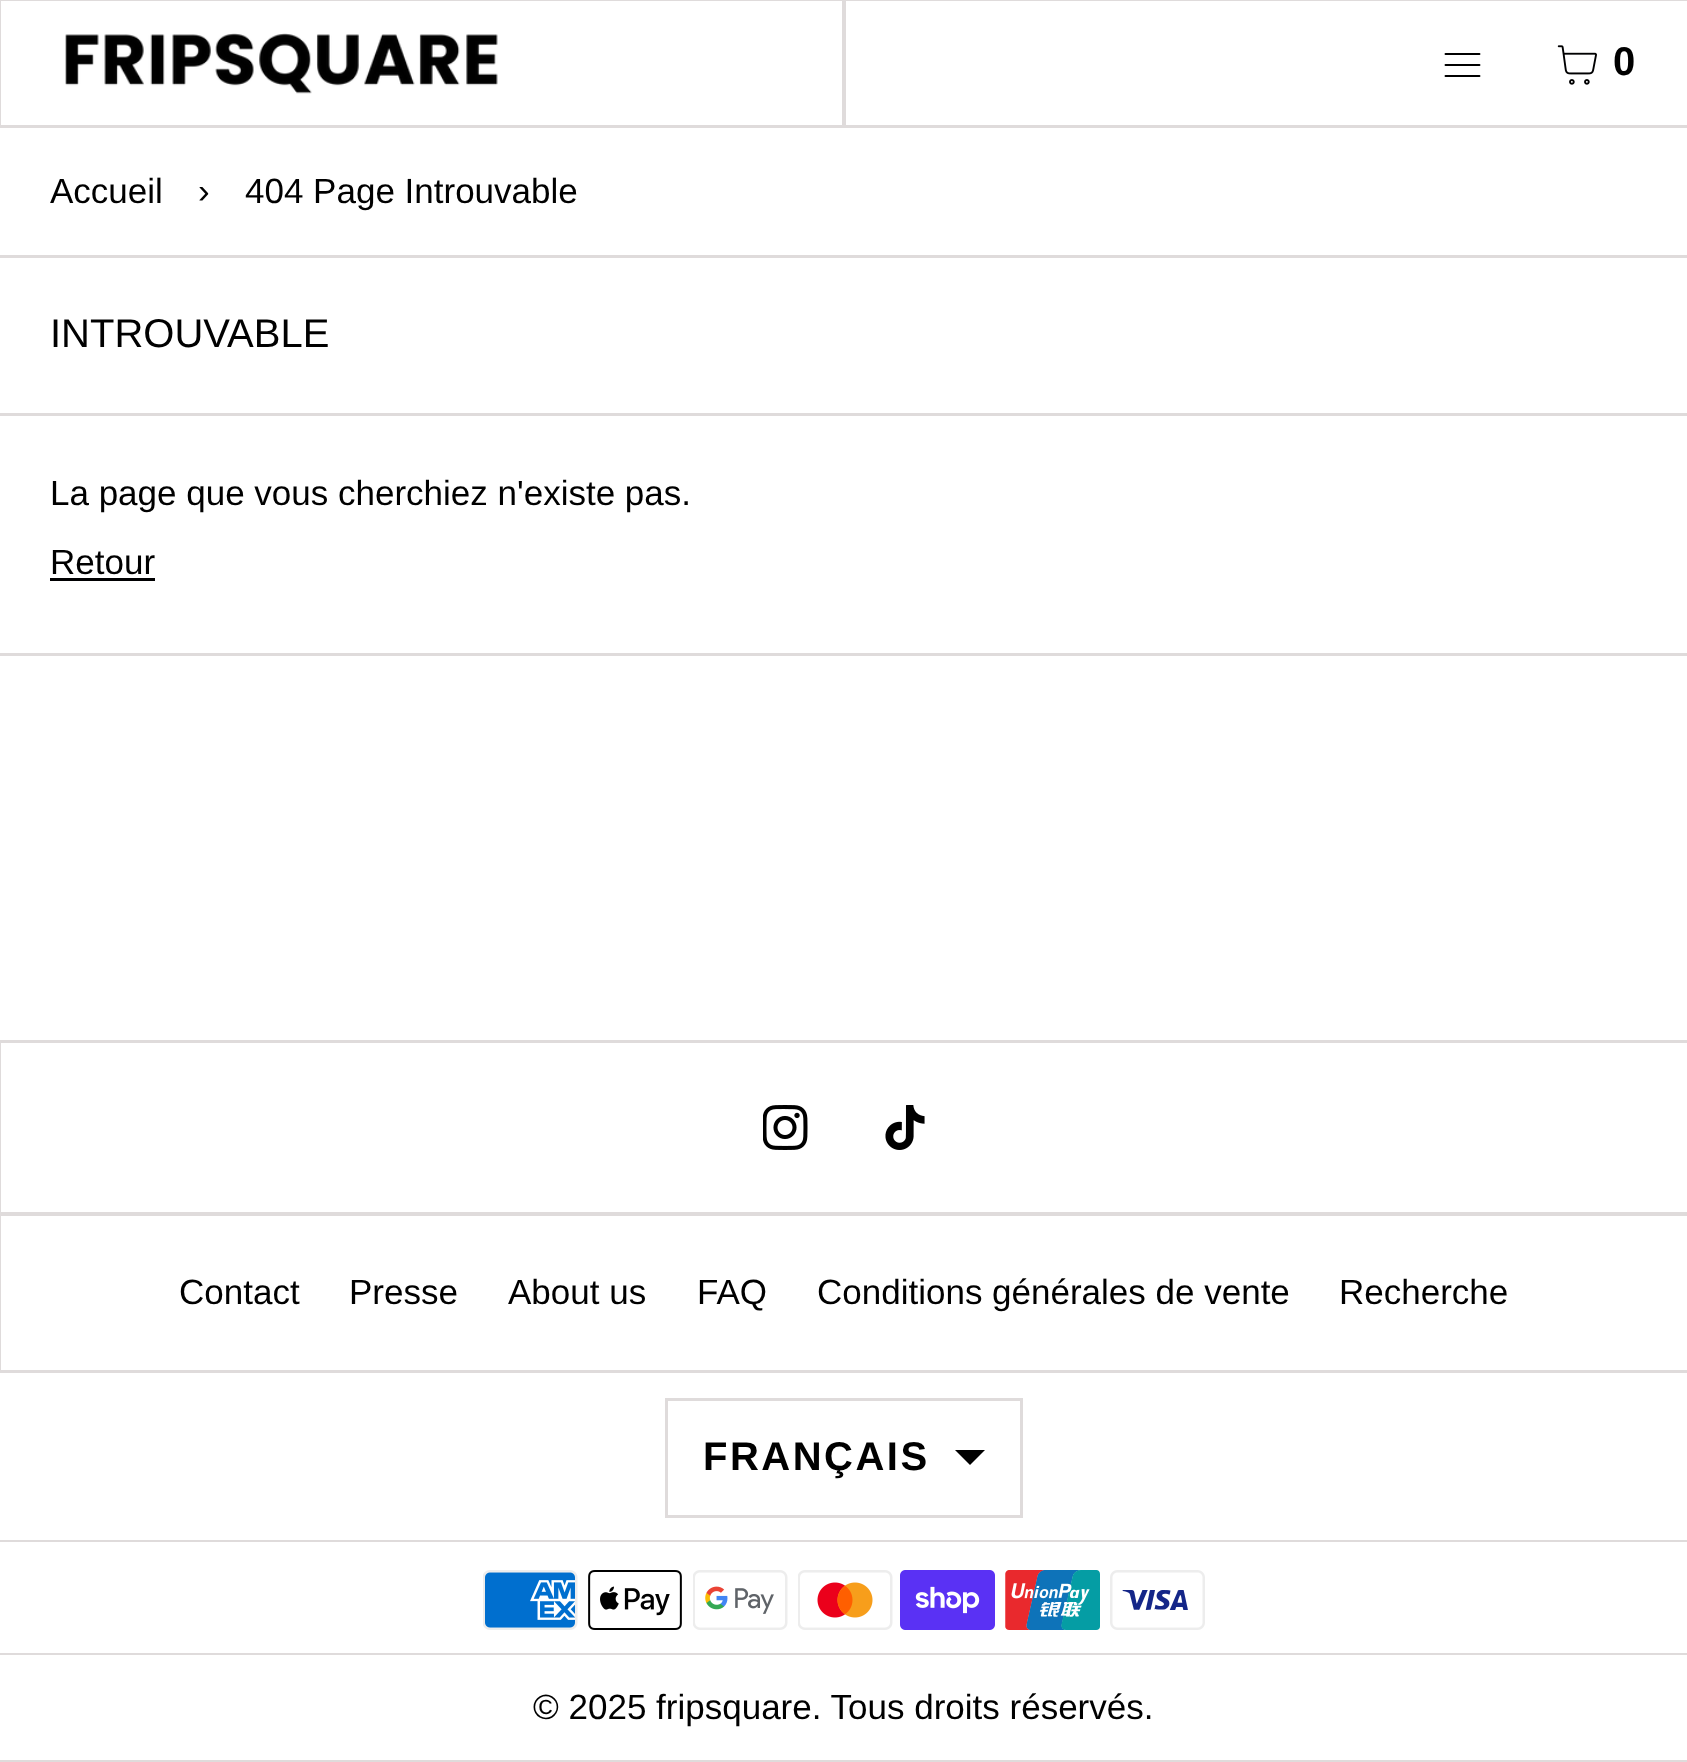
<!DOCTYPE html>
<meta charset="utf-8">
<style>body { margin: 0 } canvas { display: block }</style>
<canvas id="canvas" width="1687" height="1762"></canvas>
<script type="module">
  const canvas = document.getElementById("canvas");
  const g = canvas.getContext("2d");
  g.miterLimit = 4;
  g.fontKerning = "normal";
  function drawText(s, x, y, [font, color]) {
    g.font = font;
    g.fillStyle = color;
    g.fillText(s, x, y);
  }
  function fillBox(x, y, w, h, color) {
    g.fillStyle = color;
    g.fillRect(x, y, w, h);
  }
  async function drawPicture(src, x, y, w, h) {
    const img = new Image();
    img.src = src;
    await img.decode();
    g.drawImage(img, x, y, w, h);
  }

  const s1 = ["bold 40px Liberation Sans", "#000000"];
  const s2 = ["35px Liberation Sans", "#000000"];
  const s3 = ["40px Liberation Sans", "#000000"];

  fillBox(0, 0, 1687, 1762, "#FFFFFF");
  await drawPicture("pic1.png", 65, 33, 433, 61);
  g.strokeStyle = "#DFDBDB";
  g.lineWidth = 3;
  g.strokeRect(844.5, -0.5, 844, 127);
  g.strokeRect(-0.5, -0.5, 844, 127);
  g.beginPath();
  g.moveTo(1445.5, 65);
  g.lineTo(1479.5, 65);
  g.moveTo(1445.5, 54);
  g.lineTo(1479.5, 54);
  g.moveTo(1445.5, 76);
  g.lineTo(1479.5, 76);
  g.strokeStyle = "#000000";
  g.lineWidth = 1.9;
  g.lineCap = "round";
  g.lineJoin = "round";
  g.stroke();
  await drawPicture("pic2.png", 1557, 45, 40, 40);
  g.letterSpacing = "2.5px";
  drawText("0", 1613, 75, s1);
  fillBox(0, 255, 1687, 3, "#DFDBDB");
  g.letterSpacing = "0px";
  drawText("Accueil", 50, 203, s2);
  drawText("›", 198, 203, s2);
  drawText("404 Page Introuvable", 245, 203, s2);
  fillBox(0, 653, 1687, 3, "#DFDBDB");
  fillBox(0, 413, 1687, 3, "#DFDBDB");
  drawText("INTROUVABLE", 50, 347, s3);
  drawText("La page que vous cherchiez n'existe pas.", 50, 505, s2);
  drawText("Retour", 50, 574, s2);
  fillBox(50, 578, 105, 3, "#000001");
  g.strokeStyle = "#DFDBDB";
  g.lineWidth = 3;
  g.lineJoin = "miter";
  g.strokeRect(-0.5, 1041.5, 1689, 172);
  await drawPicture("pic3.png", 763, 1105, 45, 45);
  await drawPicture("pic4.png", 885, 1105, 40, 45);
  g.strokeRect(-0.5, 1214.5, 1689, 157);
  drawText("Contact", 179, 1304, s2);
  drawText("Presse", 349, 1304, s2);
  drawText("About us", 508, 1304, s2);
  drawText("FAQ", 697, 1304, s2);
  drawText("Conditions générales de vente", 817, 1304, s2);
  drawText("Recherche", 1339, 1304, s2);
  fillBox(0, 1760, 1687, 2, "#DFDBDB");
  g.strokeRect(666.5, 1399.5, 355, 117);
  g.letterSpacing = "2.5px";
  drawText("FRANÇAIS", 703, 1470, s1);
  g.beginPath();
  g.moveTo(955, 1450);
  g.lineTo(985, 1450);
  g.lineTo(970, 1465);
  g.closePath();
  g.fill();
  g.fillStyle = "#DFDBDB";
  g.beginPath();
  g.moveTo(0, 1540);
  g.lineTo(0, 1542);
  g.lineTo(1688, 1542);
  g.lineTo(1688, 1653);
  g.lineTo(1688, 1540);
  g.closePath();
  g.fill();
  await drawPicture("pic5.png", 483, 1570, 95, 60);
  await drawPicture("pic6.png", 588, 1570, 94, 60);
  await drawPicture("pic7.png", 693, 1570, 95, 60);
  await drawPicture("pic8.png", 798, 1570, 95, 60);
  await drawPicture("pic9.png", 900, 1570, 95, 60);
  await drawPicture("pic10.png", 1005, 1570, 95, 60);
  await drawPicture("pic11.png", 1110, 1570, 95, 60);
  g.beginPath();
  g.moveTo(0, 1653);
  g.lineTo(0, 1655);
  g.lineTo(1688, 1655);
  g.lineTo(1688, 1758);
  g.lineTo(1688, 1653);
  g.closePath();
  g.fill();
  g.letterSpacing = "0px";
  drawText("© 2025 fripsquare. Tous droits réservés.", 533, 1719, s2);
</script>
